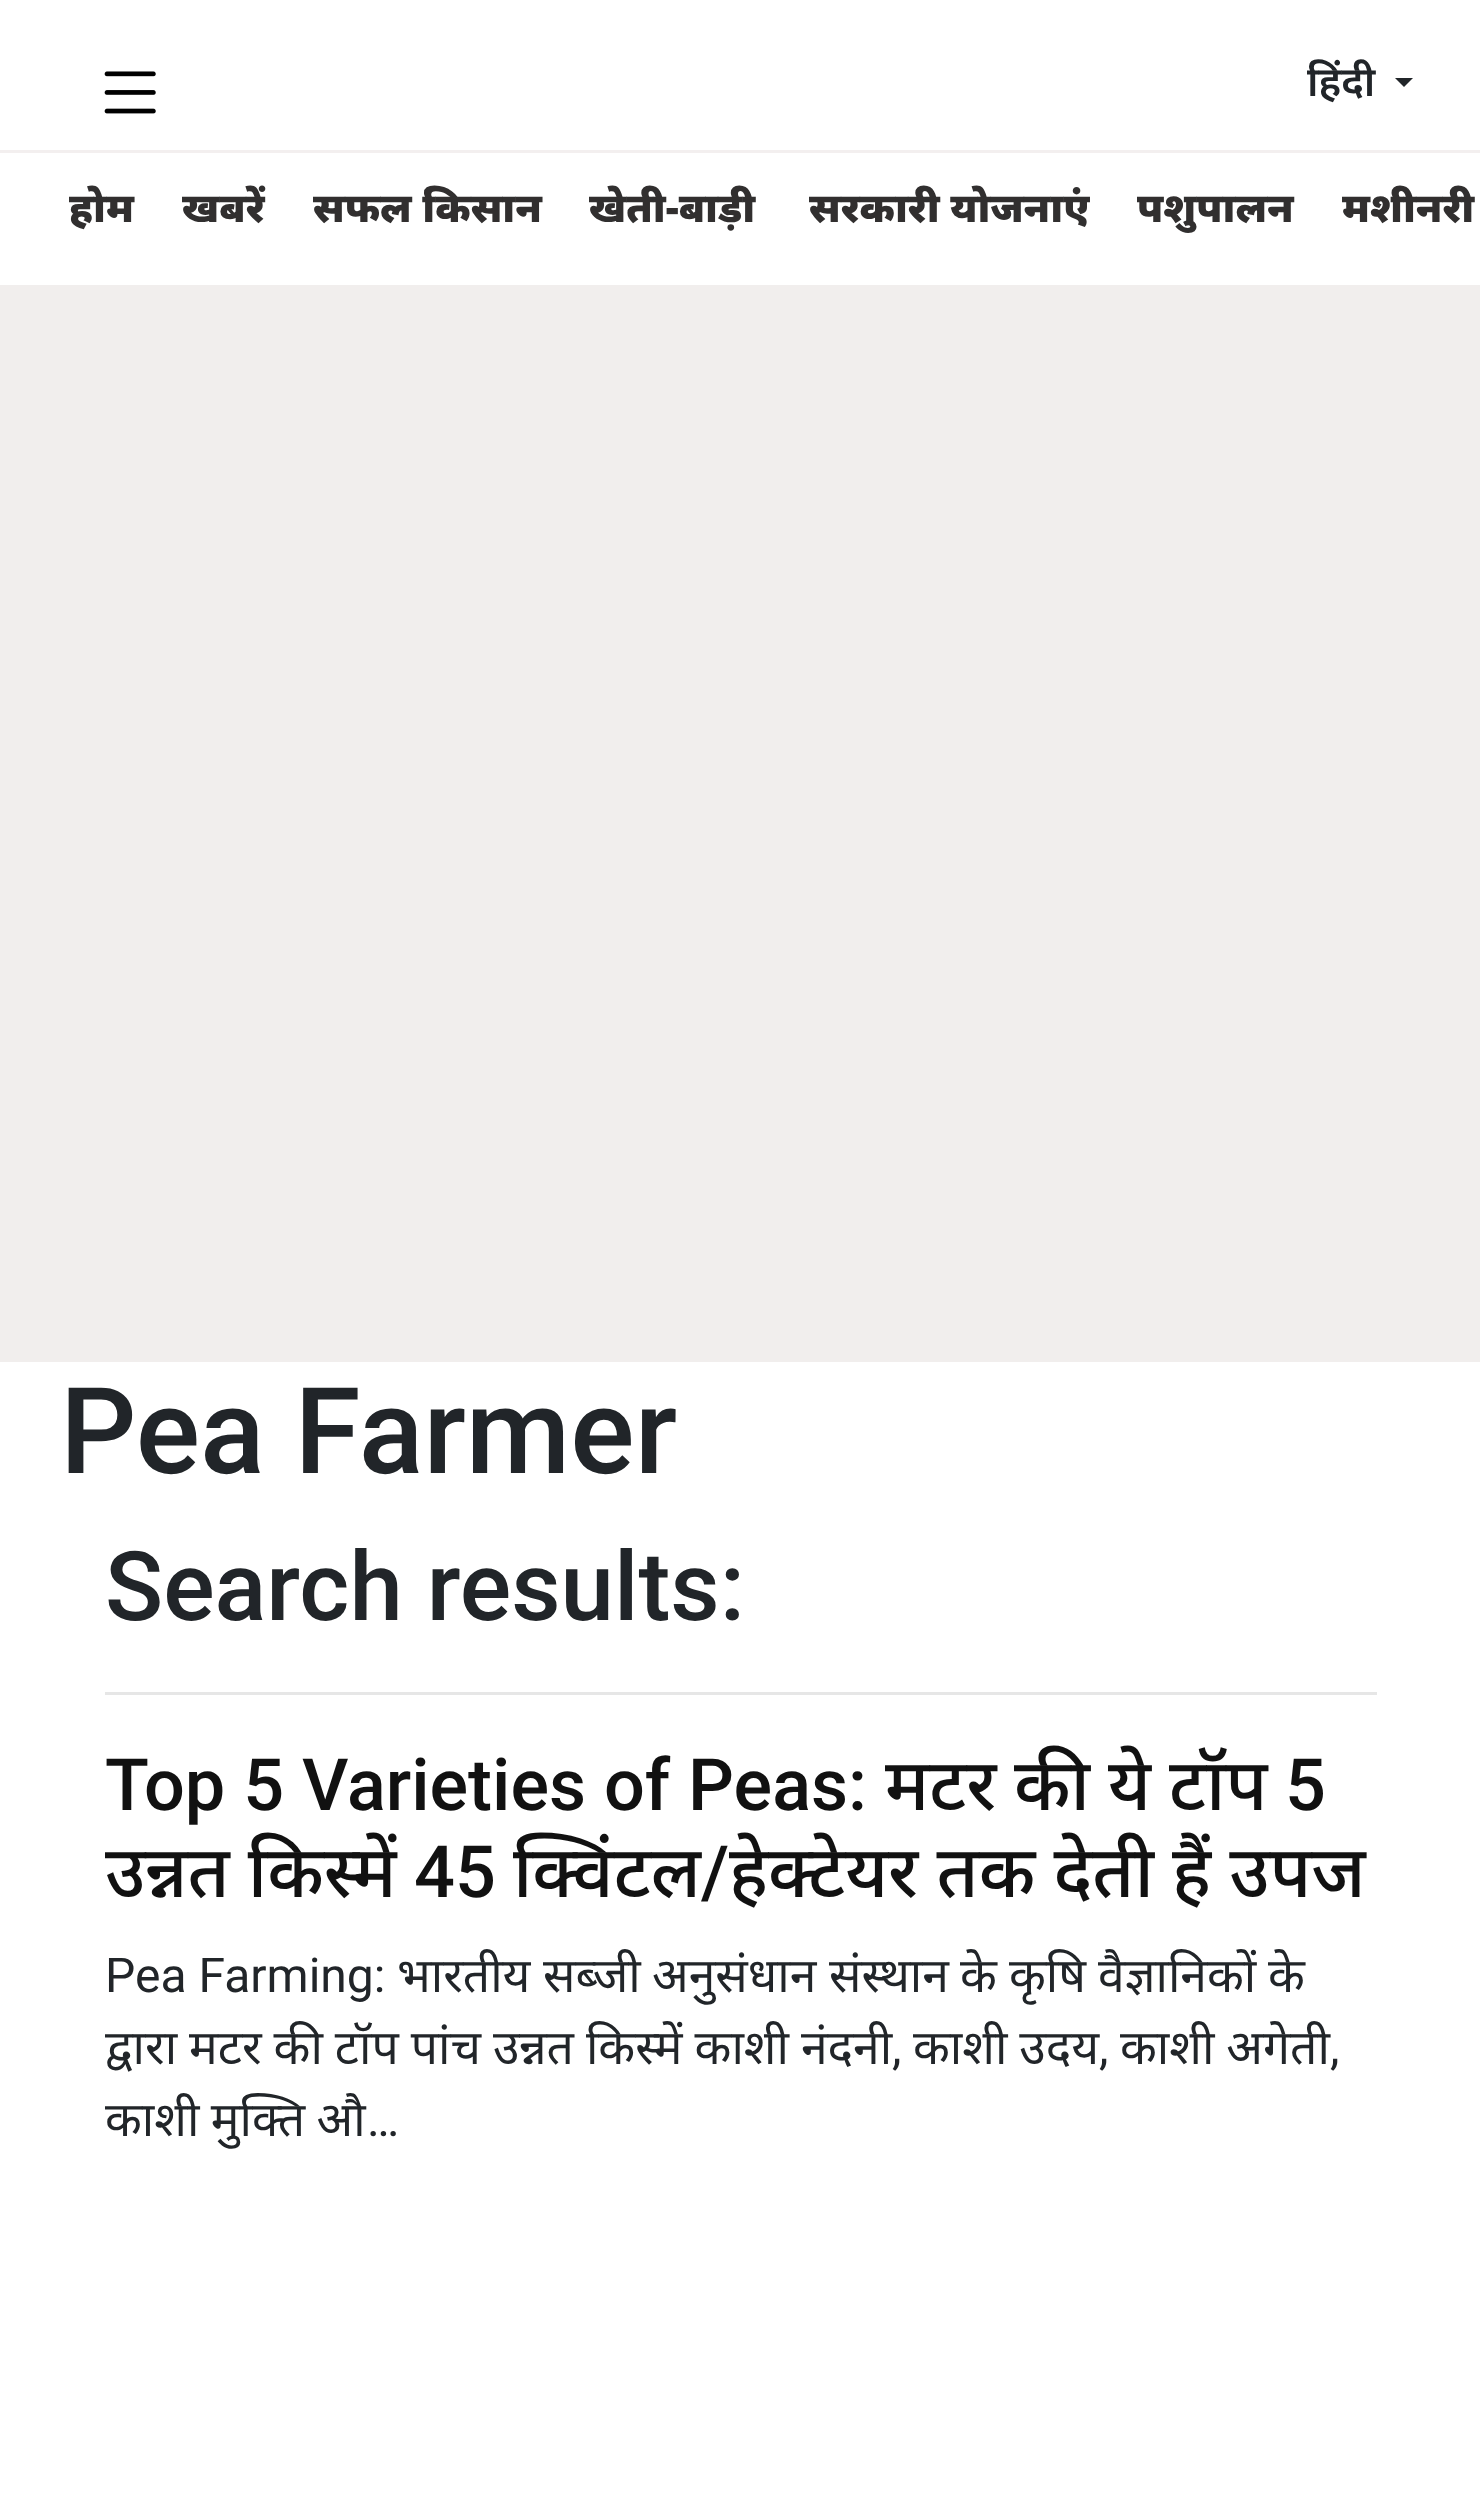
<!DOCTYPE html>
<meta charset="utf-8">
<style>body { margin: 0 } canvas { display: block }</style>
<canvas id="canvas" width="1480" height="2493"></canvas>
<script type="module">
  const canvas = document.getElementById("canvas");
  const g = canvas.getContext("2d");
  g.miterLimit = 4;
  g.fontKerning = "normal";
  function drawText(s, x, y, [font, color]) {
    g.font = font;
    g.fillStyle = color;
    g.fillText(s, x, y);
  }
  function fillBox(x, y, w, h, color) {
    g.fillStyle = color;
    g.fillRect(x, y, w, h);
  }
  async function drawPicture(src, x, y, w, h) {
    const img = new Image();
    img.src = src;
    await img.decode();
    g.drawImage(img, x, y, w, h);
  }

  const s1 = ["600 41px Noto Sans", "#212529"];
  const s2 = ["900 40.75px Noto Sans", "#312F2F"];
  const s3 = ["500 120px Roboto", "#212529"];
  const s4 = ["500 96px Roboto", "#212529"];
  const s5 = ["500 72px Roboto", "#111111"];
  const s6 = ["500 72px Noto Sans", "#111111"];
  const s7 = ["48px Roboto", "#212529"];
  const s8 = ["48px Noto Sans", "#212529"];

  fillBox(0, 0, 1480, 2493, "#FFFFFF");
  await drawPicture("pic1.png", 104, 71, 52, 43);
  drawText("हिंदी", 1307, 96, s1);
  g.beginPath();
  g.moveTo(1395, 78);
  g.lineTo(1413, 78);
  g.lineTo(1404, 87);
  g.closePath();
  g.fill();
  fillBox(0, 150, 1480, 3, "#F3EFEF");
  drawText("होम", 69, 222, s2);
  drawText("खबरें", 182, 222, s2);
  drawText("सफल किसान", 313, 222, s2);
  drawText("खेती-बाड़ी", 589, 222, s2);
  drawText("सरकारी योजनाएं", 809, 222, s2);
  drawText("पशुपालन", 1137, 222, s2);
  drawText("मशीनरी", 1342, 222, s2);
  fillBox(0, 285, 1480, 1077, "#F1EEED");
  drawText("Pea Farmer", 60, 1473, s3);
  drawText("Search results:", 105, 1620, s4);
  fillBox(105, 1692, 1272, 3, "#E6E6E6");
  drawText("Top 5 Varieties of Peas:", 105, 1810, s5);
  drawText("मटर", 885, 1810, s6);
  drawText("की", 1014, 1810, s6);
  drawText("ये", 1108, 1810, s6);
  drawText("टॉप", 1169, 1810, s6);
  drawText("5", 1285, 1810, s5);
  g.wordSpacing = "-0.5px";
  drawText("उन्नत किस्में", 105, 1897, s6);
  g.wordSpacing = "0px";
  drawText("45", 414, 1897, s5);
  drawText("क्विंटल", 513, 1897, s6);
  drawText("/", 701, 1897, s5);
  g.wordSpacing = "-0.5px";
  drawText("हेक्टेयर तक देती हैं उपज", 729, 1897, s6);
  g.wordSpacing = "0px";
  drawText("Pea Farming:", 105, 1992, s7);
  drawText("भारतीय", 397, 1992, s8);
  drawText("सब्जी", 543, 1992, s8);
  drawText("अनुसंधान", 652, 1992, s8);
  drawText("संस्थान", 829, 1992, s8);
  drawText("के", 960, 1992, s8);
  drawText("कृषि", 1009, 1992, s8);
  drawText("वैज्ञानिकों", 1098, 1992, s8);
  drawText("के", 1268, 1992, s8);
  g.wordSpacing = "-0.5px";
  drawText("द्वारा मटर की टॉप पांच उन्नत किस्में काशी नंदनी", 105, 2064, s8);
  g.wordSpacing = "0px";
  drawText(",", 892, 2064, s7);
  g.wordSpacing = "-0.5px";
  drawText("काशी उदय", 913, 2064, s8);
  g.wordSpacing = "0px";
  drawText(",", 1099, 2064, s7);
  g.wordSpacing = "-0.5px";
  drawText("काशी अगेती", 1120, 2064, s8);
  g.wordSpacing = "0px";
  drawText(",", 1330, 2064, s7);
  g.wordSpacing = "-1px";
  drawText("काशी मुक्ति औ", 105, 2136, s8);
  g.wordSpacing = "0px";
  drawText("…", 367, 2136, s7);
</script>
